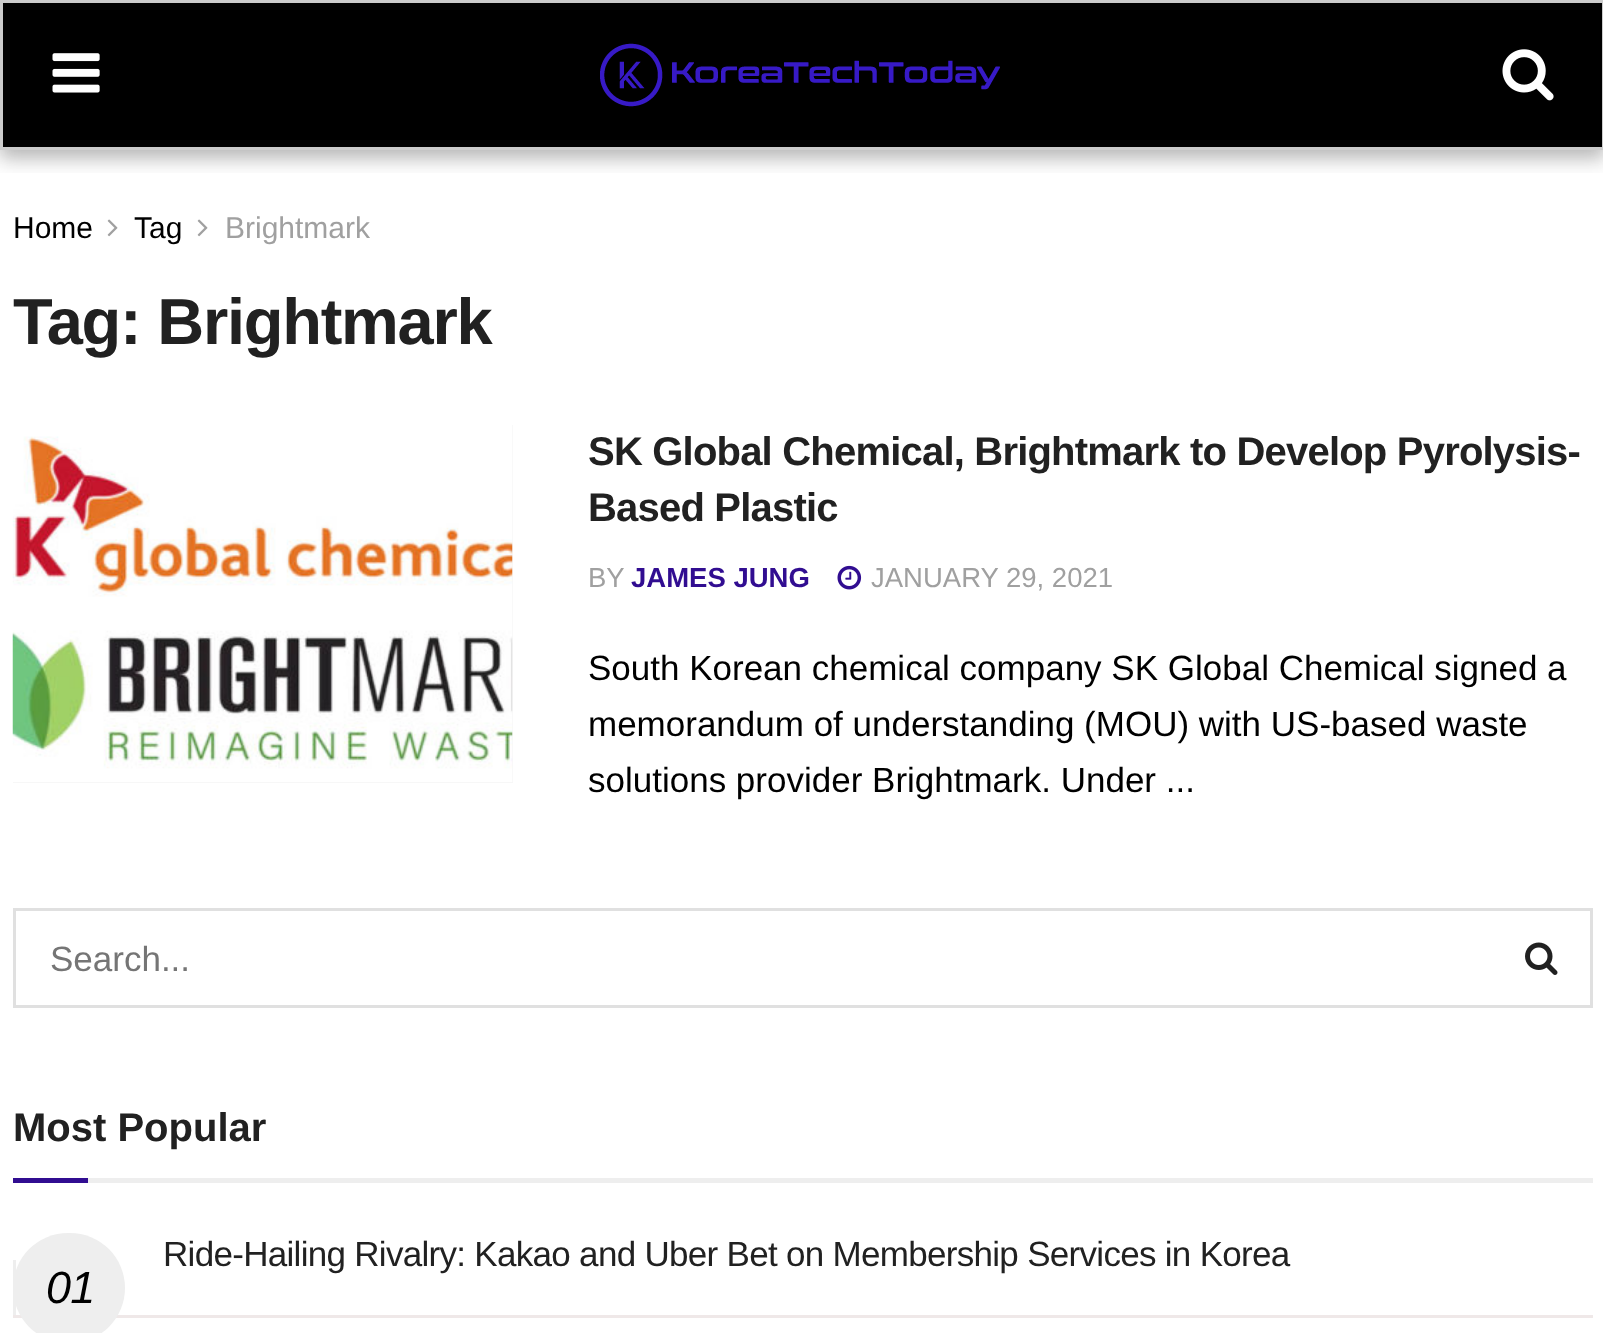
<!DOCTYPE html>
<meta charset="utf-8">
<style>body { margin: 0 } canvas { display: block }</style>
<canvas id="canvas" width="1603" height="1333"></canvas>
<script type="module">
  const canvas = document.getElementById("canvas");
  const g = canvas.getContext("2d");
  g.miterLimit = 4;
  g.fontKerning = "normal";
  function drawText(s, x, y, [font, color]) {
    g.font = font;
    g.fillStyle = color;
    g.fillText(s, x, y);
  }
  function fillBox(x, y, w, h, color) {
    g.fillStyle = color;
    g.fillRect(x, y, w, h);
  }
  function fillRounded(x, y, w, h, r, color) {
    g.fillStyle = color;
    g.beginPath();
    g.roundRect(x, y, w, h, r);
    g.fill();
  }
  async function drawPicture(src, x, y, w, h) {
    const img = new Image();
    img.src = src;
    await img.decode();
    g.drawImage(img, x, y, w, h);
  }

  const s1 = ["30px Liberation Sans", "#000000"];
  const s2 = ["30px Liberation Sans", "#A0A0A0"];
  const s3 = ["bold 65px Liberation Sans", "#212121"];
  const s4 = ["bold 40px Liberation Sans", "#212121"];
  const s5 = ["27.5px Liberation Sans", "#A0A0A0"];
  const s6 = ["bold 27.5px Liberation Sans", "#310D91"];
  const s7 = ["35px Liberation Sans", "#000000"];
  const s8 = ["35px Liberation Sans", "#757575"];
  const s9 = ["35px Liberation Sans", "#212121"];
  const s10 = ["italic 45px Liberation Sans", "#000000"];

  fillBox(0, 0, 1603, 1333, "#FFFFFF");
  g.fillStyle = "rgba(0, 0, 0, 0.1)";
  g.filter = "blur(7.5px)";
  g.beginPath();
  g.rect(0, 5, 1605, 150);
  g.fill();
  g.filter = "none";
  fillBox(3, 3, 1599, 144, "#000000");
  g.save();
  g.beginPath();
  g.rect(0, 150, 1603, 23);
  g.clip();
  g.fillStyle = "rgba(0, 0, 0, 0.2)";
  g.filter = "blur(10px)";
  g.beginPath();
  g.rect(0, 10, 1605, 150);
  g.fill();
  g.filter = "none";
  g.restore();
  g.strokeStyle = "#CCCCCC";
  g.lineWidth = 3;
  g.strokeRect(1.5, 1.5, 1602, 147);
  await drawPicture("pic1.png", 52, 53, 48, 40);
  await drawPicture("pic2.png", 600, 43, 400, 64);
  await drawPicture("pic3.png", 1502, 49, 52, 52);
  drawText("Home", 13, 238, s1);
  await drawPicture("pic4.png", 107, 219, 11, 18);
  drawText("Tag", 134, 238, s1);
  await drawPicture("pic4.png", 197, 219, 11, 18);
  drawText("Brightmark", 225, 238, s2);
  g.letterSpacing = "-1.25px";
  drawText("Tag: Brightmark", 13, 344, s3);
  fillBox(13, 425, 500, 358, "#F7F7F7");
  await drawPicture("pic5.png", 12, 425, 501, 357);
  g.letterSpacing = "-0.8px";
  drawText("SK Global Chemical, Brightmark to Develop Pyrolysis-", 588, 465, s4);
  drawText("Based Plastic", 588, 521, s4);
  g.letterSpacing = "0px";
  drawText("BY", 588, 587, s5);
  drawText("JAMES JUNG", 631, 587, s6);
  await drawPicture("pic6.png", 837, 565, 25, 25);
  drawText("JANUARY 29, 2021", 871, 587, s5);
  drawText("South Korean chemical company SK Global Chemical signed a", 588, 680, s7);
  drawText("memorandum of understanding (MOU) with US-based waste", 588, 736, s7);
  drawText("solutions provider Brightmark. Under ...", 588, 792, s7);
  g.strokeStyle = "#E0E0E0";
  g.strokeRect(14.5, 909.5, 1577, 97);
  drawText("Search...", 50, 971, s8);
  await drawPicture("pic7.png", 1525, 942, 33, 33);
  fillBox(88, 1178, 1505, 5, "#EEEEEE");
  drawText("Most Popular", 13, 1141, s4);
  fillBox(13, 1178, 75, 5, "#310D91");
  fillBox(13, 1315, 1580, 3, "#EFE8E8");
  g.letterSpacing = "-0.7px";
  drawText("Ride-Hailing Rivalry: Kakao and Uber Bet on Membership Services in Korea", 163, 1266, s9);
  fillRounded(13, 1233, 112, 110, 55, "#EEEEEE");
  fillBox(13, 1260, 3, 55, "#EEEEEE");
  drawText("01", 46, 1303, s10);
</script>
